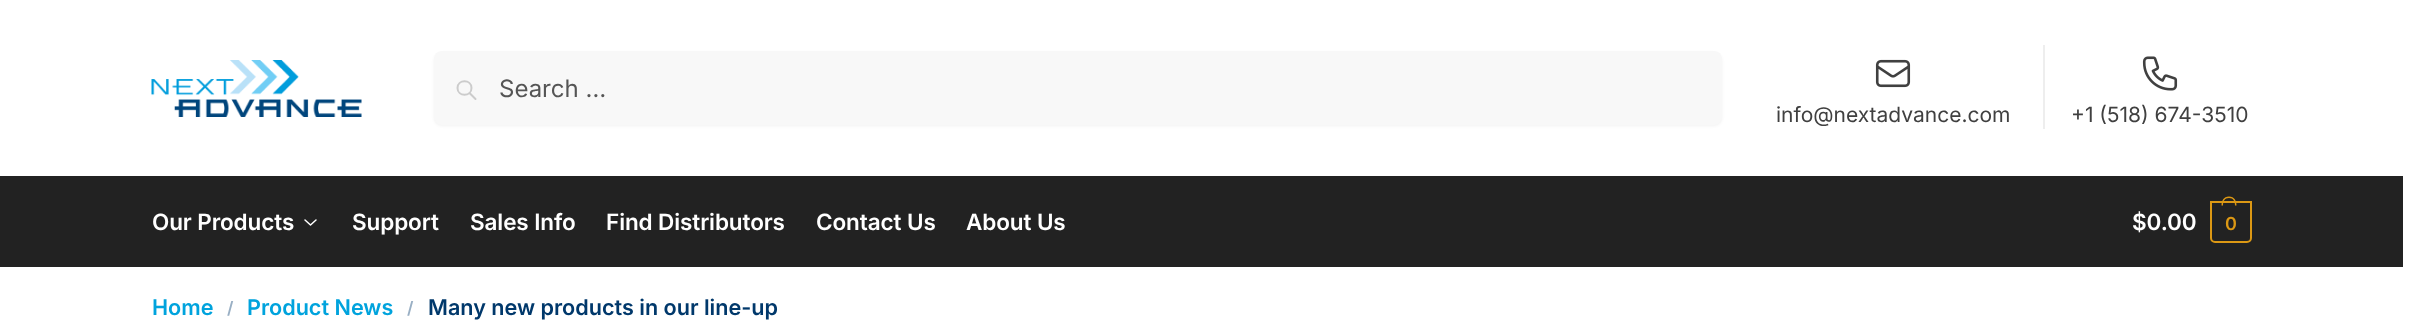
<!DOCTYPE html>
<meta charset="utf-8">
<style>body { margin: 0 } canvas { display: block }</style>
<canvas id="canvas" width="2425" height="332"></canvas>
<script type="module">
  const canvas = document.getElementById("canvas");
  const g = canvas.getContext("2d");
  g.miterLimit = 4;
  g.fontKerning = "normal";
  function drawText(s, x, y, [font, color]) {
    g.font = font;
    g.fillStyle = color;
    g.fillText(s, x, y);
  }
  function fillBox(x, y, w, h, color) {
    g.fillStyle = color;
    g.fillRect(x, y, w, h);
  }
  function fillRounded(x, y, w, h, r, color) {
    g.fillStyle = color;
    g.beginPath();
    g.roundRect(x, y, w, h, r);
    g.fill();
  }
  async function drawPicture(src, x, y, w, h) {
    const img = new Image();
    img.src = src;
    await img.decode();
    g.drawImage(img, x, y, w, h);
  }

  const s1 = ["24px Inter", "#555555"];
  const s2 = ["21px Inter", "#404040"];
  const s3 = ["600 22.5px Inter", "#FFFFFF"];
  const s4 = ["600 18px Inter", "#DC9814"];
  const s5 = ["600 21.6px Inter", "#00A3DD"];
  const s6 = ["600 17px Inter", "#99AFC4"];
  const s7 = ["600 21.6px Inter", "#00386B"];

  fillBox(0, 0, 2425, 332, "#FFFFFF");
  await drawPicture("pic1.png", 151, 60, 211, 57);
  g.fillStyle = "rgba(0, 0, 0, 0.05)";
  g.filter = "blur(1.5px)";
  g.beginPath();
  g.roundRect(434, 53, 1288, 73, 8);
  g.fill();
  g.filter = "none";
  fillRounded(434, 51, 1288, 74, 8, "#F8F8F8");
  g.beginPath();
  g.moveTo(475.5, 99);
  g.lineTo(469.5, 93);
  g.moveTo(471.5, 88);
  g.bezierCurveTo(471.5, 97, 457.5, 97, 457.5, 88);
  g.bezierCurveTo(457.5, 79, 471.5, 79, 471.5, 88);
  g.closePath();
  g.strokeStyle = "#CCCCCC";
  g.lineWidth = 2;
  g.lineCap = "round";
  g.lineJoin = "round";
  g.stroke();
  drawText("Search …", 499, 97, s1);
  await drawPicture("pic2.png", 1875, 59, 36, 29);
  drawText("info@nextadvance.com", 1776, 122, s2);
  fillBox(2043, 45, 2, 84, "#EEEEEE");
  await drawPicture("pic3.png", 2142, 56, 36, 35);
  drawText("+1 (518) 674-3510", 2071, 122, s2);
  fillBox(0, 176, 2403, 91, "#222222");
  g.letterSpacing = "-0.1px";
  drawText("Our Products", 152, 230, s3);
  g.beginPath();
  g.moveTo(316, 220);
  g.lineTo(310.5, 225);
  g.lineTo(305, 220);
  g.strokeStyle = "#FFFFFF";
  g.lineWidth = 1.5;
  g.stroke();
  drawText("Support", 352, 230, s3);
  drawText("Sales Info", 470, 230, s3);
  drawText("Find Distributors", 606, 230, s3);
  drawText("Contact Us", 816, 230, s3);
  drawText("About Us", 966, 230, s3);
  drawText("$0.00", 2132, 230, s3);
  g.beginPath();
  g.roundRect(2211, 202, 40, 40, [0, 0, 4, 4]);
  g.strokeStyle = "#DC9814";
  g.lineWidth = 2;
  g.lineJoin = "miter";
  g.stroke();
  g.fillStyle = "#DC9814";
  g.beginPath();
  g.moveTo(2229, 196.5);
  g.bezierCurveTo(2234.5, 196.5, 2236.5, 201, 2236.5, 205.5);
  g.lineTo(2221.5, 205.5);
  g.bezierCurveTo(2221.5, 201, 2223.5, 196.5, 2229, 196.5);
  g.closePath();
  g.moveTo(2229, 198);
  g.bezierCurveTo(2233.5, 198, 2235, 201.5, 2235, 205.5);
  g.lineTo(2223, 205.5);
  g.bezierCurveTo(2223, 201.5, 2224.5, 198, 2229, 198);
  g.closePath();
  g.fill("evenodd");
  g.letterSpacing = "-1px";
  drawText("0", 2225, 230, s4);
  g.letterSpacing = "0px";
  drawText("Home", 152, 315, s5);
  drawText("/", 227, 314, s6);
  drawText("Product News", 247, 315, s5);
  drawText("/", 407, 314, s6);
  drawText("Many new products in our line-up", 428, 315, s7);
</script>
